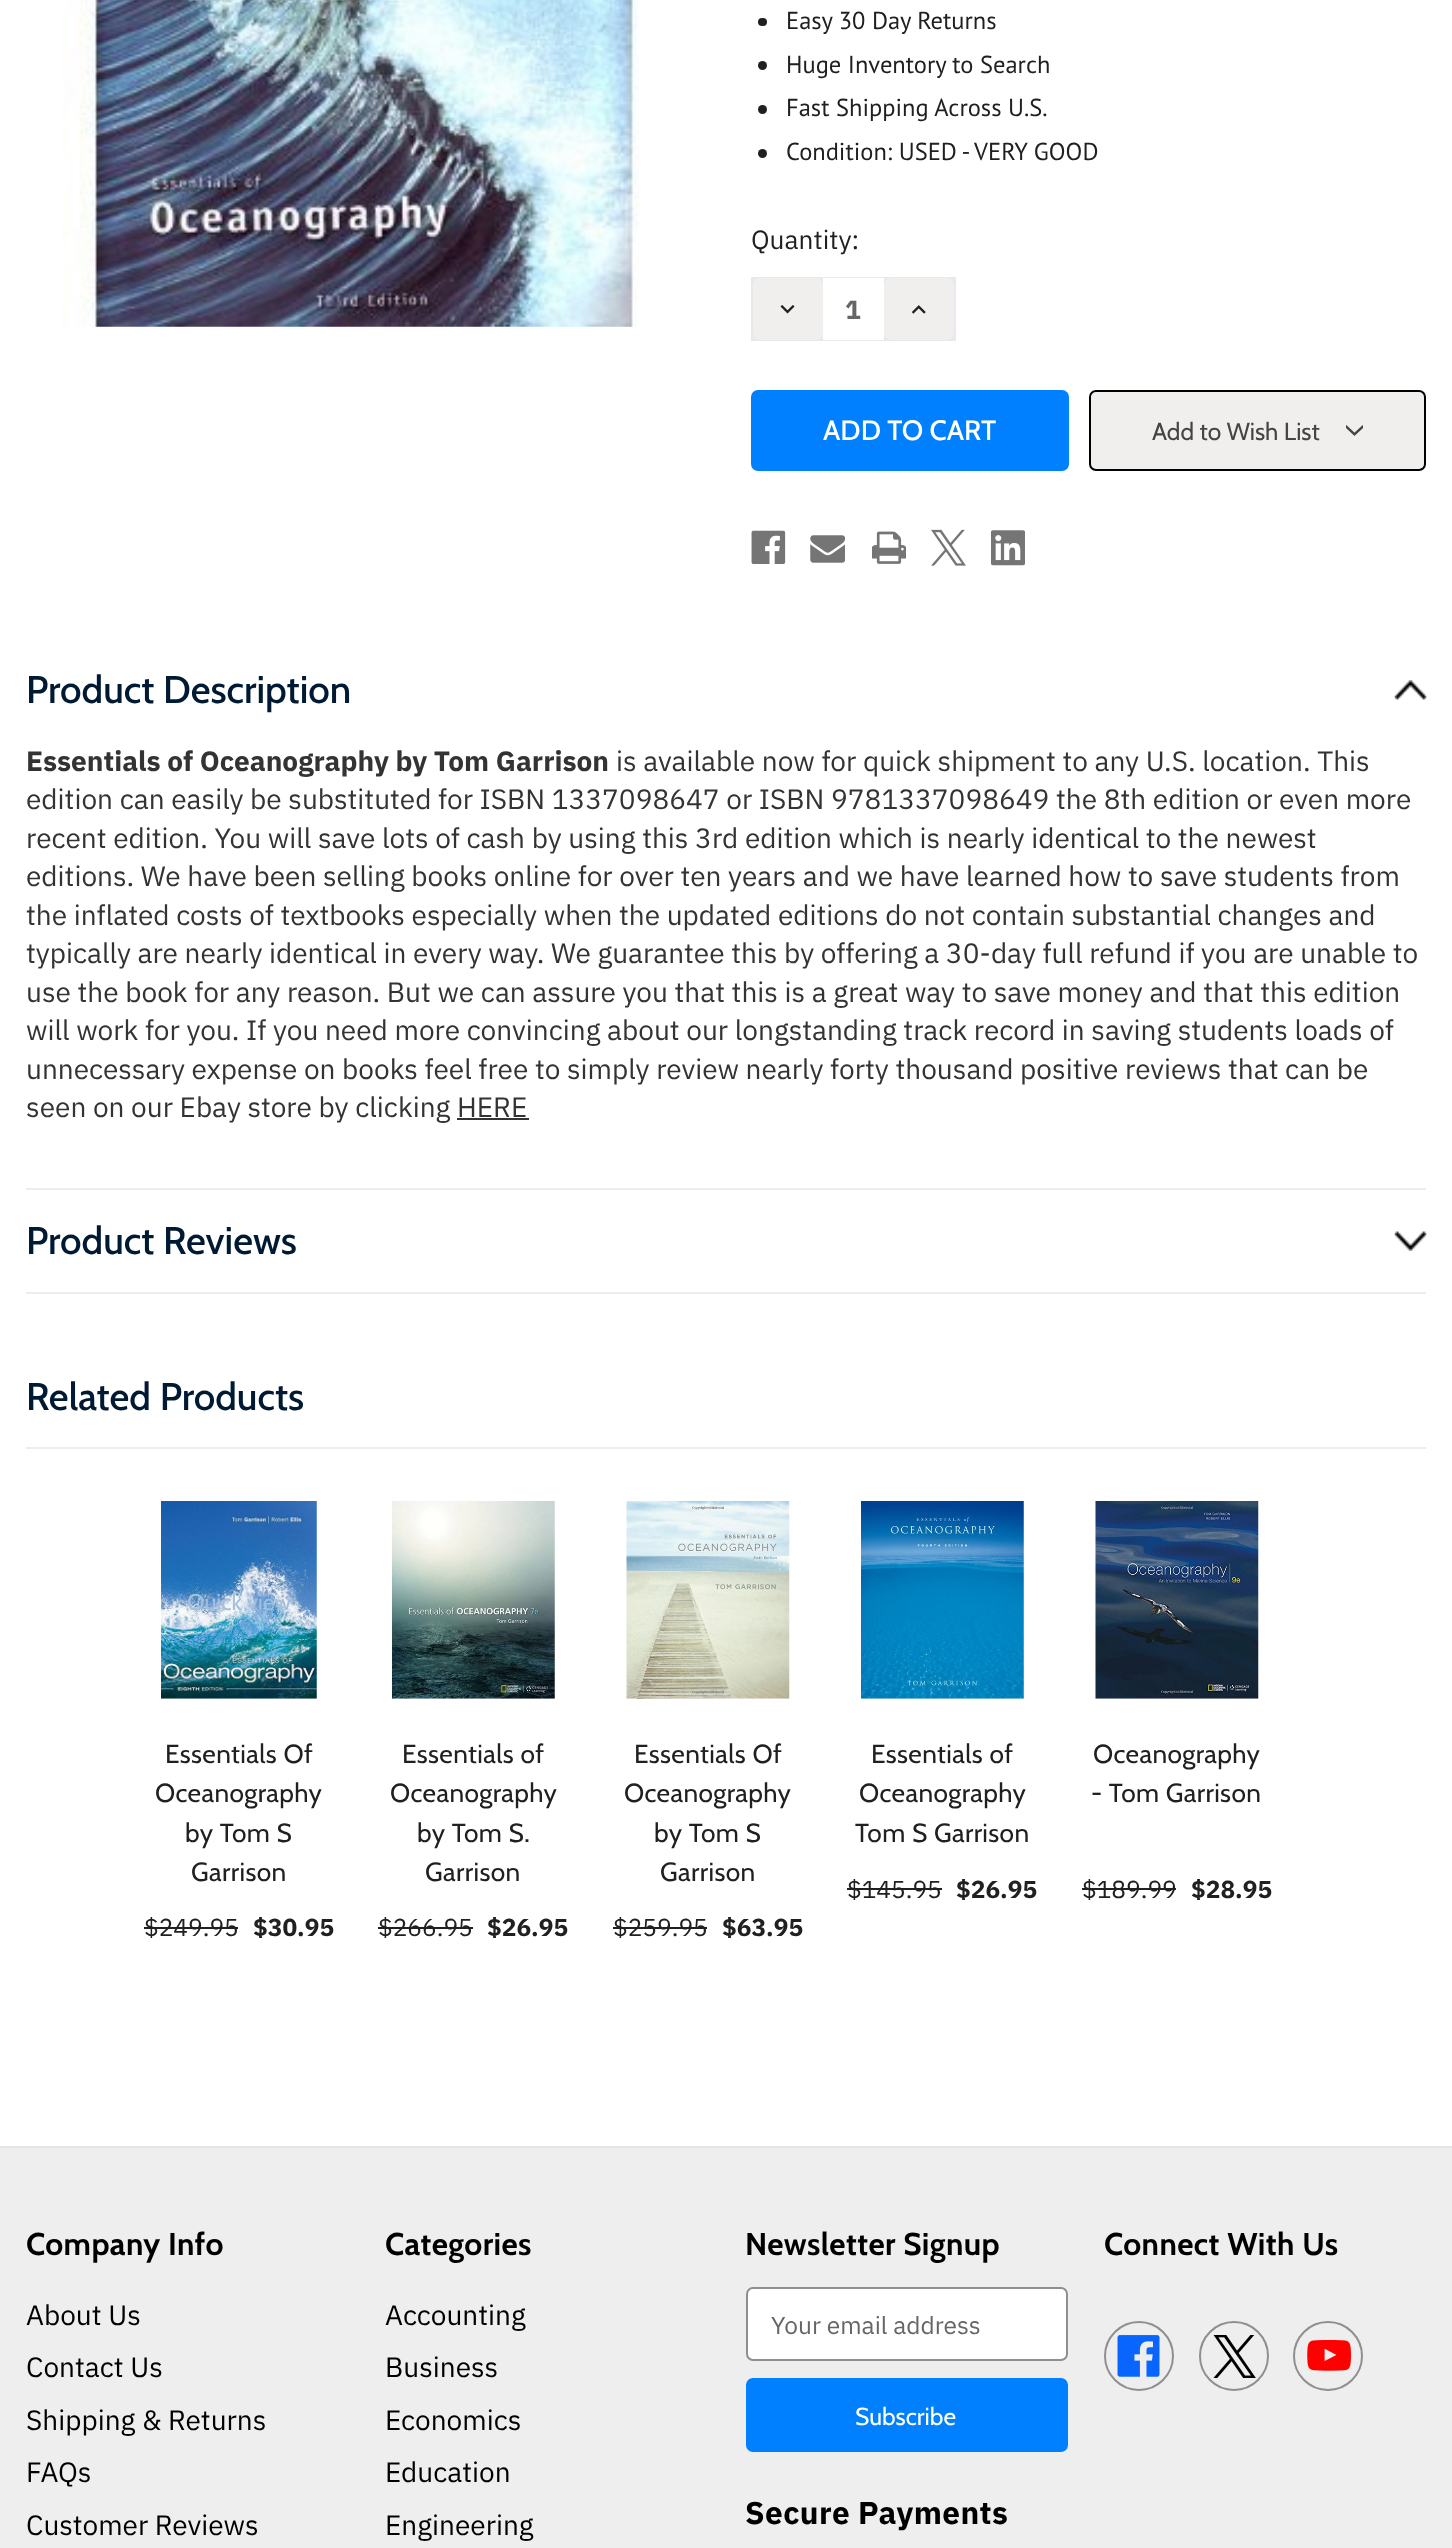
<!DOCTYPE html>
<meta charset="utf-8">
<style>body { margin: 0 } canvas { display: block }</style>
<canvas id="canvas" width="1452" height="2548"></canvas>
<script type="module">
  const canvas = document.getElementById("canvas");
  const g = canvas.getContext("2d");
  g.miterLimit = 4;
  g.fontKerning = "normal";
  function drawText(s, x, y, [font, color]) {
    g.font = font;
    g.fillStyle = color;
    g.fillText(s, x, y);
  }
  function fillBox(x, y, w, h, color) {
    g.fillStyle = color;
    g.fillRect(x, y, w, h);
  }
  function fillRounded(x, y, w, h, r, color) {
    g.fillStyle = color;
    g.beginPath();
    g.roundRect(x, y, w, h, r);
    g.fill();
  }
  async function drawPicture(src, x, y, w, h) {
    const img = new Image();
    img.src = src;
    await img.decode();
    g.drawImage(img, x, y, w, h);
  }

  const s1 = ["24.5px PT Sans", "#202020"];
  const s2 = ["26.25px IBM Plex Sans", "#202020"];
  const s3 = ["bold 26.25px IBM Plex Sans", "#666666"];
  const s4 = ["500 28px Cabin", "#FFFFFF"];
  const s5 = ["24.5px Cabin", "#454545"];
  const s6 = ["500 38.5px Cabin", "#001A33"];
  const s7 = ["bold 28px IBM Plex Sans", "#333333"];
  const s8 = ["28px IBM Plex Sans", "#333333"];
  const s9 = ["22.75px Cabin", "#A2BFDD"];
  const s10 = ["26.25px Cabin", "#202020"];
  const s11 = ["24.5px IBM Plex Sans", "#202020"];
  const s12 = ["bold 24.5px IBM Plex Sans", "#202020"];
  const s13 = ["bold 31.5px Cabin", "#000000"];
  const s14 = ["28px IBM Plex Sans", "#000000"];
  const s15 = ["24.5px IBM Plex Sans", "#666666"];
  const s16 = ["24.5px Cabin", "#FFFFFF"];
  const s17 = ["bold 31.5px IBM Plex Sans", "#000000"];

  fillBox(0, 0, 1452, 2548, "#FFFFFF");
  await drawPicture("pic1.png", 62, 0, 577, 327);
  fillRounded(758, 18, 9, 8, 4, "#202020");
  drawText("Easy 30 Day Returns", 786, 29, s1);
  g.beginPath();
  g.arc(762.5, 65.5, 4.5, 0, Math.PI * 2);
  g.fill();
  drawText("Huge Inventory to Search", 786, 73, s1);
  g.beginPath();
  g.arc(762.5, 109.5, 4.5, 0, Math.PI * 2);
  g.fill();
  drawText("Fast Shipping Across U.S.", 786, 116, s1);
  g.beginPath();
  g.arc(762.5, 153.5, 4.5, 0, Math.PI * 2);
  g.fill();
  drawText("Condition: USED - VERY GOOD", 786, 160, s1);
  drawText("Quantity:", 751, 249, s2);
  fillBox(751, 277, 205, 64, "#E9E9ED");
  fillRounded(753, 278, 70, 62, 7, "#F0EFEE");
  await drawPicture("pic2.png", 780, 305, 15, 9);
  fillBox(823, 278, 61, 62, "#FFFFFF");
  drawText("1", 845, 319, s3);
  fillRounded(884, 278, 70, 62, 7, "#F0EFEE");
  await drawPicture("pic3.png", 911, 305, 15, 9);
  g.fillStyle = "#0080FF";
  g.beginPath();
  g.roundRect(753, 392, 314, 77, 5);
  g.fill();
  g.strokeStyle = "#0080FF";
  g.lineWidth = 4;
  g.stroke();
  drawText("ADD TO CART", 823, 440, s4);
  g.fillStyle = "#F0EFEE";
  g.beginPath();
  g.roundRect(1090, 391, 335, 79, 6);
  g.fill();
  g.strokeStyle = "#000000";
  g.lineWidth = 2;
  g.stroke();
  drawText("Add to Wish List", 1152, 440, s5);
  await drawPicture("pic4.png", 1346, 425, 17, 11);
  await drawPicture("pic5.png", 751, 530, 35, 34);
  await drawPicture("pic6.png", 810, 535, 35, 28);
  await drawPicture("pic7.png", 872, 531, 34, 33);
  await drawPicture("pic8.png", 931, 529, 35, 37);
  await drawPicture("pic9.png", 991, 530, 34, 36);
  await drawPicture("pic10.png", 1394, 680, 33, 20);
  drawText("Product Description", 26, 703, s6);
  fillBox(26, 1188, 1400, 2, "#EDEDED");
  drawText("Essentials of Oceanography by Tom Garrison", 26, 771, s7);
  drawText("is available now for quick shipment to any U.S. location. This", 616, 771, s8);
  drawText("edition can easily be substituted for ISBN 1337098647 or ISBN 9781337098649 the 8th edition or even more", 26, 809, s8);
  drawText("recent edition. You will save lots of cash by using this 3rd edition which is nearly identical to the newest", 26, 848, s8);
  drawText("editions. We have been selling books online for over ten years and we have learned how to save students from", 26, 886, s8);
  drawText("the inflated costs of textbooks especially when the updated editions do not contain substantial changes and", 26, 925, s8);
  drawText("typically are nearly identical in every way. We guarantee this by offering a 30-day full refund if you are unable to", 26, 963, s8);
  drawText("use the book for any reason. But we can assure you that this is a great way to save money and that this edition", 26, 1002, s8);
  drawText("will work for you. If you need more convincing about our longstanding track record in saving students loads of", 26, 1040, s8);
  drawText("unnecessary expense on books feel free to simply review nearly forty thousand positive reviews that can be", 26, 1079, s8);
  drawText("seen on our Ebay store by clicking HERE", 26, 1117, s8);
  fillBox(457, 1118, 72, 2, "#333333");
  await drawPicture("pic11.png", 1394, 1231, 33, 20);
  fillBox(26, 1292, 1400, 2, "#EDEDED");
  drawText("Product Reviews", 26, 1254, s6);
  fillBox(26, 1447, 1400, 2, "#EDEDED");
  drawText("Related Products", 26, 1410, s6);
  await drawPicture("pic12.png", 161, 1501, 156, 198);
  drawText("Quick view", 187, 1610, s9);
  g.letterSpacing = "0.4px";
  drawText("Essentials Of", 165, 1763, s10);
  drawText("Oceanography", 155, 1802, s10);
  drawText("by Tom S", 185, 1842, s10);
  drawText("Garrison", 191, 1881, s10);
  g.letterSpacing = "0px";
  drawText("$249.95", 144, 1936, s11);
  fillBox(144, 1927, 94, 2, "#202020");
  drawText("$30.95", 253, 1936, s12);
  await drawPicture("pic13.png", 392, 1501, 163, 198);
  g.letterSpacing = "0.4px";
  drawText("Essentials of", 402, 1763, s10);
  drawText("Oceanography", 390, 1802, s10);
  drawText("by Tom S.", 417, 1842, s10);
  drawText("Garrison", 425, 1881, s10);
  g.letterSpacing = "0px";
  drawText("$266.95", 378, 1936, s11);
  fillBox(378, 1927, 95, 2, "#202020");
  drawText("$26.95", 487, 1936, s12);
  await drawPicture("pic14.png", 626, 1501, 164, 198);
  g.letterSpacing = "0.4px";
  drawText("Essentials Of", 634, 1763, s10);
  drawText("Oceanography", 624, 1802, s10);
  drawText("by Tom S", 654, 1842, s10);
  drawText("Garrison", 660, 1881, s10);
  g.letterSpacing = "0px";
  drawText("$259.95", 613, 1936, s11);
  fillBox(613, 1927, 94, 2, "#202020");
  drawText("$63.95", 722, 1936, s12);
  await drawPicture("pic15.png", 861, 1501, 163, 198);
  g.letterSpacing = "0.4px";
  drawText("Essentials of", 871, 1763, s10);
  drawText("Oceanography", 859, 1802, s10);
  drawText("Tom S Garrison", 855, 1842, s10);
  g.letterSpacing = "0px";
  drawText("$145.95", 847, 1898, s11);
  fillBox(847, 1888, 95, 2, "#202020");
  drawText("$26.95", 956, 1898, s12);
  await drawPicture("pic16.png", 1095, 1501, 164, 198);
  g.letterSpacing = "0.4px";
  drawText("Oceanography", 1093, 1763, s10);
  drawText("- Tom Garrison", 1091, 1802, s10);
  g.letterSpacing = "0px";
  drawText("$189.99", 1082, 1898, s11);
  fillBox(1082, 1888, 94, 2, "#202020");
  drawText("$28.95", 1191, 1898, s12);
  fillBox(0, 2148, 1452, 400, "#EEEEEE");
  fillBox(0, 2146, 1452, 2, "#E5E5E5");
  g.letterSpacing = "0.4px";
  drawText("Company Info", 26, 2255, s13);
  g.letterSpacing = "0px";
  drawText("About Us", 26, 2325, s14);
  drawText("Contact Us", 26, 2377, s14);
  drawText("Shipping & Returns", 26, 2430, s14);
  drawText("FAQs", 26, 2482, s14);
  drawText("Customer Reviews", 26, 2535, s14);
  g.letterSpacing = "0.4px";
  drawText("Categories", 385, 2255, s13);
  g.letterSpacing = "0px";
  drawText("Accounting", 385, 2325, s14);
  drawText("Business", 385, 2377, s14);
  drawText("Economics", 385, 2430, s14);
  drawText("Education", 385, 2482, s14);
  drawText("Engineering", 385, 2535, s14);
  g.letterSpacing = "0.4px";
  drawText("Newsletter Signup", 745, 2255, s13);
  g.fillStyle = "#FFFFFF";
  g.beginPath();
  g.roundRect(747, 2288, 320, 72, 6);
  g.fill();
  g.strokeStyle = "#8F8F8F";
  g.stroke();
  g.letterSpacing = "0px";
  drawText("Your email address", 771, 2334, s15);
  g.fillStyle = "#0080FF";
  g.beginPath();
  g.roundRect(747, 2379, 320, 72, 6);
  g.fill();
  g.strokeStyle = "#0080FF";
  g.stroke();
  drawText("Subscribe", 855, 2425, s16);
  g.letterSpacing = "0.4px";
  drawText("Secure Payments", 745, 2524, s17);
  drawText("Connect With Us", 1104, 2255, s13);
  g.beginPath();
  g.arc(1139, 2356, 34, 0, Math.PI * 2);
  g.strokeStyle = "#8F8F8F";
  g.stroke();
  await drawPicture("pic17.png", 1117, 2335, 43, 42);
  g.beginPath();
  g.arc(1234, 2356, 34, 0, Math.PI * 2);
  g.stroke();
  await drawPicture("pic18.png", 1213, 2335, 43, 43);
  g.beginPath();
  g.arc(1328, 2356, 34, 0, Math.PI * 2);
  g.stroke();
  await drawPicture("pic19.png", 1307, 2340, 44, 31);
</script>
